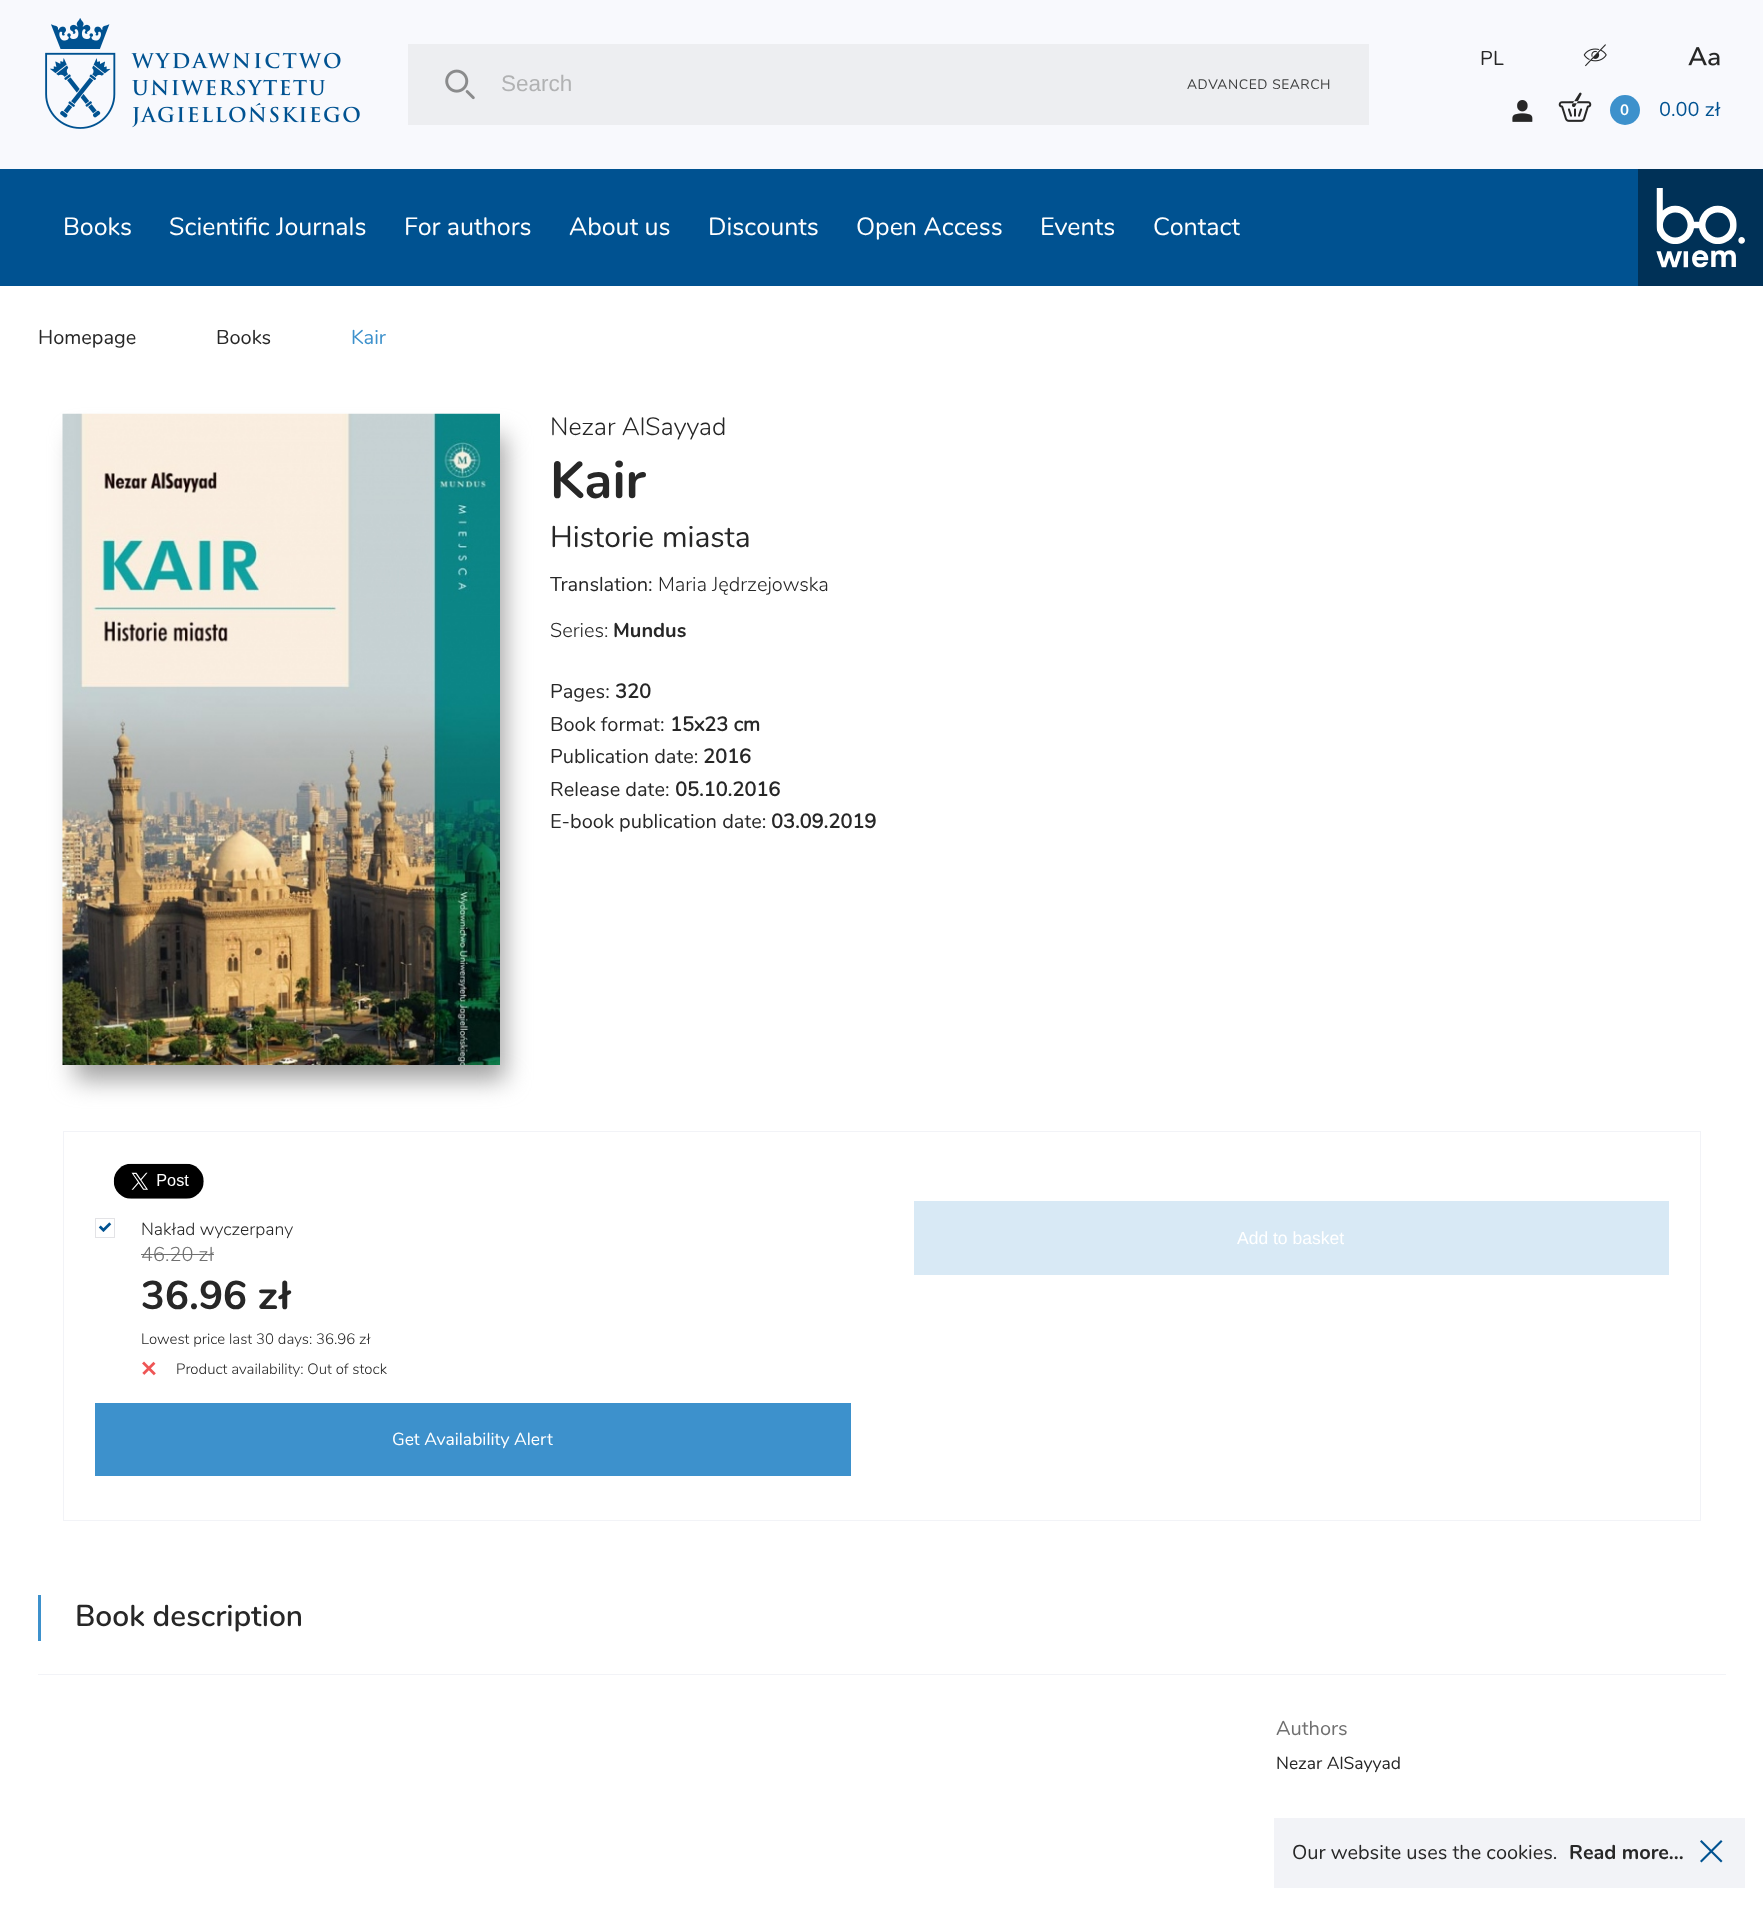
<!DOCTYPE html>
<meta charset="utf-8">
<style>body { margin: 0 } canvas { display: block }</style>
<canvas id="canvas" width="1763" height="1906"></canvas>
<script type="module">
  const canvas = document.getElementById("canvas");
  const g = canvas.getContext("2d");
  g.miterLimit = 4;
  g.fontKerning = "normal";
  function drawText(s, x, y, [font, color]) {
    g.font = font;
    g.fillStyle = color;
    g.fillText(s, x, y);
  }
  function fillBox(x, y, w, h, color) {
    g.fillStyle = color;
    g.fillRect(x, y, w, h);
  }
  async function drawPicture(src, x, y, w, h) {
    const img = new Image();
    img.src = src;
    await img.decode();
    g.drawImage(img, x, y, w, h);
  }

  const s1 = ["22.5px Liberation Sans", "#B1B2B3"];
  const s2 = ["13.75px Nunito", "#3E3F3F"];
  const s3 = ["20px Nunito", "#272727"];
  const s4 = ["bold 15px Nunito", "#FFFFFF"];
  const s5 = ["20px Nunito", "#005291"];
  const s6 = ["25px Nunito", "#FFFFFF"];
  const s7 = ["20px Nunito", "#3D91CC"];
  const s8 = ["300 25px Nunito", "#272727"];
  const s9 = ["bold 52px Nunito", "#272727"];
  const s10 = ["30px Nunito", "#272727"];
  const s11 = ["300 20px Nunito", "#272727"];
  const s12 = ["bold 20px Nunito", "#272727"];
  const s13 = ["bold 20px 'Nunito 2'", "#272727"];
  const s14 = ["300 17.5px Nunito", "#272727"];
  const s15 = ["300 20px Nunito", "#707070"];
  const s16 = ["bold 40px Nunito", "#272727"];
  const s17 = ["300 15px Nunito", "#272727"];
  const s18 = ["17.5px Nunito", "#FFFFFF"];
  const s19 = ["17.5px Liberation Sans", "#FFFFFF"];
  const s20 = ["600 30px Nunito", "#272727"];
  const s21 = ["20px Nunito", "#707070"];
  const s22 = ["17.5px Nunito", "#272727"];

  fillBox(0, 0, 1763, 1906, "#FFFFFF");
  fillBox(0, 0, 1763, 169, "#F8F9FD");
  await drawPicture("pic1.png", 45, 18, 315, 111);
  fillBox(408, 44, 961, 81, "#EDEEF1");
  await drawPicture("pic2.png", 445, 69, 30, 31);
  drawText("Search", 501, 91, s1);
  g.letterSpacing = "0.6px";
  drawText("ADVANCED SEARCH", 1187, 89, s2);
  g.letterSpacing = "0px";
  drawText("PL", 1480, 65, s3);
  await drawPicture("pic3.png", 1583, 44, 24, 23);
  await drawPicture("pic4.png", 1688, 47, 32, 19);
  await drawPicture("pic5.png", 1512, 100, 21, 22);
  await drawPicture("pic6.png", 1558, 92, 34, 30);
  g.fillStyle = "#3D91CC";
  g.beginPath();
  g.arc(1625, 110, 15, 0, Math.PI * 2);
  g.fill();
  drawText("0", 1620, 115, s4);
  drawText("0.00 zł", 1659, 116, s5);
  fillBox(0, 169, 1638, 117, "#005291");
  drawText("Books", 63, 235, s6);
  drawText("Scientific Journals", 169, 235, s6);
  drawText("For authors", 404, 235, s6);
  drawText("About us", 569, 235, s6);
  drawText("Discounts", 708, 235, s6);
  drawText("Open Access", 856, 235, s6);
  drawText("Events", 1040, 235, s6);
  drawText("Contact", 1153, 235, s6);
  fillBox(1638, 169, 125, 117, "#003157");
  await drawPicture("pic7.png", 1656, 188, 89, 80);
  drawText("Homepage", 38, 344, s3);
  drawText("Books", 216, 344, s3);
  drawText("Kair", 351, 344, s7);
  g.fillStyle = "#A3A3A3";
  g.filter = "blur(12.5px)";
  g.beginPath();
  g.rect(75, 436, 430, 644);
  g.fill();
  g.filter = "none";
  await drawPicture("pic8.png", 62, 413, 438, 652);
  drawText("Nezar AlSayyad", 550, 435, s8);
  drawText("Kair", 550, 498, s9);
  drawText("Historie miasta", 550, 547, s10);
  drawText("Translation:", 550, 591, s3);
  drawText("Maria Jędrzejowska", 658, 591, s11);
  drawText("Series:", 550, 637, s11);
  drawText("Mundus", 613, 637, s12);
  drawText("Pages:", 550, 698, s3);
  drawText("320", 615, 698, s13);
  drawText("Book format:", 550, 731, s3);
  drawText("15x23 cm", 670, 731, s13);
  drawText("Publication date:", 550, 763, s3);
  drawText("2016", 703, 763, s13);
  drawText("Release date:", 550, 796, s3);
  drawText("05.10.2016", 675, 796, s13);
  drawText("E-book publication date:", 550, 828, s3);
  drawText("03.09.2019", 771, 828, s13);
  g.strokeStyle = "#F2F3F7";
  g.strokeRect(63.5, 1131.5, 1637, 389);
  await drawPicture("pic9.png", 113, 1163, 91, 36);
  g.strokeStyle = "#E3E3E6";
  g.strokeRect(95.5, 1218.5, 19, 19);
  await drawPicture("pic10.png", 98, 1222, 14, 10);
  drawText("Nakład wyczerpany", 141, 1235, s14);
  drawText("46.20 zł", 141, 1261, s15);
  fillBox(141, 1254, 73, 1, "#707070");
  drawText("36.96 zł", 141, 1309, s16);
  drawText("Lowest price last 30 days: 36.96 zł", 141, 1344, s17);
  await drawPicture("pic11.png", 142, 1361, 14, 15);
  drawText("Product availability: Out of stock", 176, 1374, s17);
  fillBox(95, 1403, 756, 73, "#3D91CC");
  drawText("Get Availability Alert", 392, 1445, s18);
  fillBox(914, 1201, 755, 74, "#D8E9F5");
  drawText("Add to basket", 1237, 1244, s19);
  fillBox(38, 1595, 3, 46, "#3D91CC");
  drawText("Book description", 75, 1626, s20);
  fillBox(38, 1674, 1688, 1, "#F2F3F7");
  drawText("Authors", 1276, 1735, s21);
  drawText("Nezar AlSayyad", 1276, 1769, s22);
  fillBox(1274, 1818, 471, 70, "#F2F3F7");
  drawText("Our website uses the cookies.", 1292, 1859, s3);
  drawText("Read more...", 1569, 1859, s12);
  g.fillStyle = "#005291";
  g.beginPath();
  g.moveTo(1700, 1841.5);
  g.lineTo(1701.5, 1840);
  g.lineTo(1722.5, 1861);
  g.lineTo(1721, 1862.5);
  g.closePath();
  g.fill();
  g.beginPath();
  g.moveTo(1721, 1840);
  g.lineTo(1722.5, 1841.5);
  g.lineTo(1701.5, 1862.5);
  g.lineTo(1700, 1861);
  g.closePath();
  g.fill();
</script>
